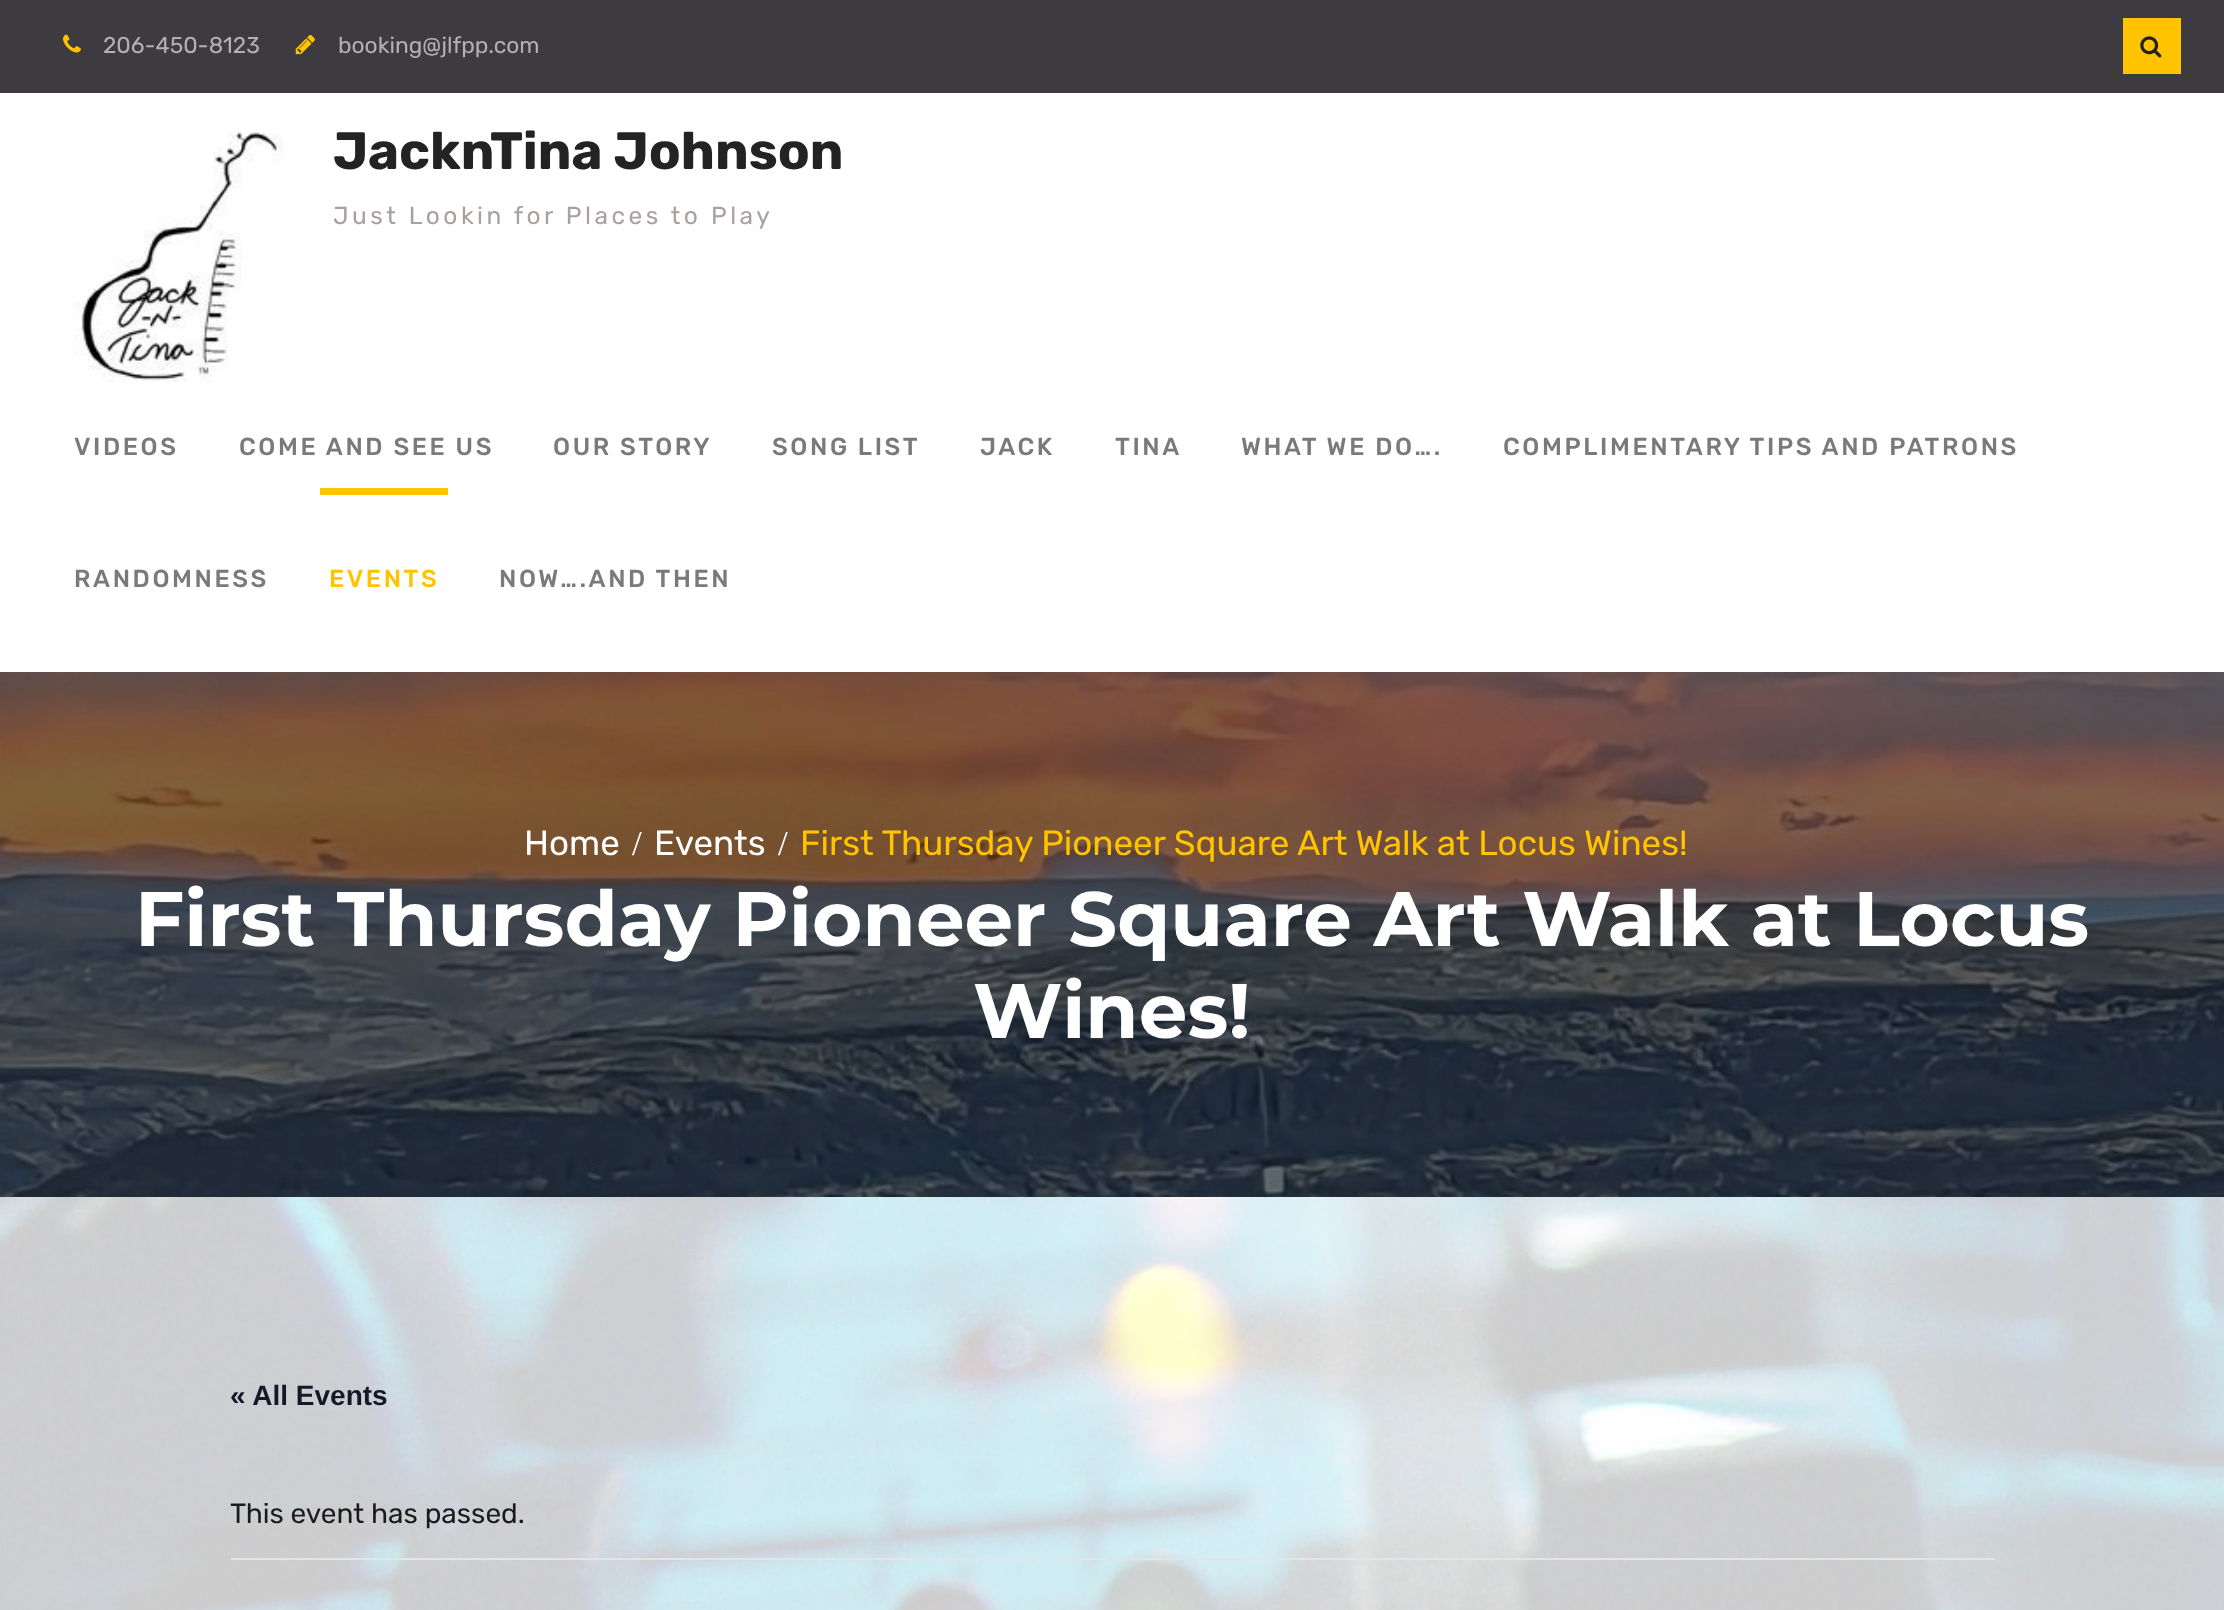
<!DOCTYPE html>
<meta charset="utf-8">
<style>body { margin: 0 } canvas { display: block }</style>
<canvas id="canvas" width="2224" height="1610"></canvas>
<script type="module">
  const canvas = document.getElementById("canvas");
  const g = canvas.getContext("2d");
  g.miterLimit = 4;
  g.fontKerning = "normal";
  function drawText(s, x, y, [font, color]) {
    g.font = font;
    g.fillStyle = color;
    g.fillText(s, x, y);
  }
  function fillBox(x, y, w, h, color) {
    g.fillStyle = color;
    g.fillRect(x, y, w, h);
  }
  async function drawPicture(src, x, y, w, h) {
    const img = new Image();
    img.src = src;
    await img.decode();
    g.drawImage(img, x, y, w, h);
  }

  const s1 = ["22.75px Rubik", "#B1B1B1"];
  const s2 = ["bold 52.5px Rubik", "#232323"];
  const s3 = ["24.5px Rubik", "#ABA0A0"];
  const s4 = ["500 24.5px Rubik", "#7B7979"];
  const s5 = ["500 24.5px Rubik", "#FFC300"];
  const s6 = ["35px Rubik", "#FFFFFF"];
  const s7 = ["35px Liberation Serif", "#FFFFFF"];
  const s8 = ["35px Rubik", "#FFC300"];
  const s9 = ["bold 77px Montserrat", "#FFFFFF"];
  const s10 = ["bold 28px Liberation Sans", "#141827"];
  const s11 = ["28px Rubik", "#1B1B1B"];

  fillBox(0, 0, 2224, 1610, "#FFFFFF");
  await drawPicture("pic1.png", 0, 1197, 2224, 413);
  fillBox(0, 0, 2224, 93, "#3D3B40");
  await drawPicture("pic2.png", 63, 34, 18, 19);
  drawText("206-450-8123", 103, 53, s1);
  await drawPicture("pic3.png", 295, 34, 20, 21);
  drawText("booking@jlfpp.com", 338, 53, s1);
  fillBox(2123, 18, 58, 56, "#FFC300");
  await drawPicture("pic4.png", 2140, 36, 22, 22);
  await drawPicture("pic5.png", 73, 132, 211, 250);
  drawText("JacknTina Johnson", 333, 169, s2);
  g.letterSpacing = "3.5px";
  drawText("Just Lookin for Places to Play", 333, 224, s3);
  g.letterSpacing = "2.6px";
  drawText("VIDEOS", 74, 455, s4);
  drawText("COME AND SEE US", 239, 455, s4);
  drawText("OUR STORY", 553, 455, s4);
  drawText("SONG LIST", 772, 455, s4);
  drawText("JACK", 980, 455, s4);
  drawText("TINA", 1115, 455, s4);
  drawText("WHAT WE DO….", 1241, 455, s4);
  drawText("COMPLIMENTARY TIPS AND PATRONS", 1503, 455, s4);
  drawText("RANDOMNESS", 74, 587, s4);
  fillBox(320, 488, 128, 7, "#FFC300");
  drawText("EVENTS", 329, 587, s5);
  drawText("NOW….AND THEN", 499, 587, s4);
  await drawPicture("pic6.png", 0, 672, 2224, 525);
  g.letterSpacing = "0px";
  drawText("Home", 524, 855, s6);
  drawText("/", 632, 855, s7);
  drawText("Events", 654, 855, s6);
  drawText("/", 778, 855, s7);
  drawText("First Thursday Pioneer Square Art Walk at Locus Wines!", 800, 855, s8);
  drawText("First Thursday Pioneer Square Art Walk at Locus", 135, 946, s9);
  drawText("Wines!", 973, 1038, s9);
  drawText("« All Events", 230, 1405, s10);
  fillBox(231, 1558, 1764, 2, "#E4E4E4");
  drawText("This event has passed.", 230, 1523, s11);
</script>
